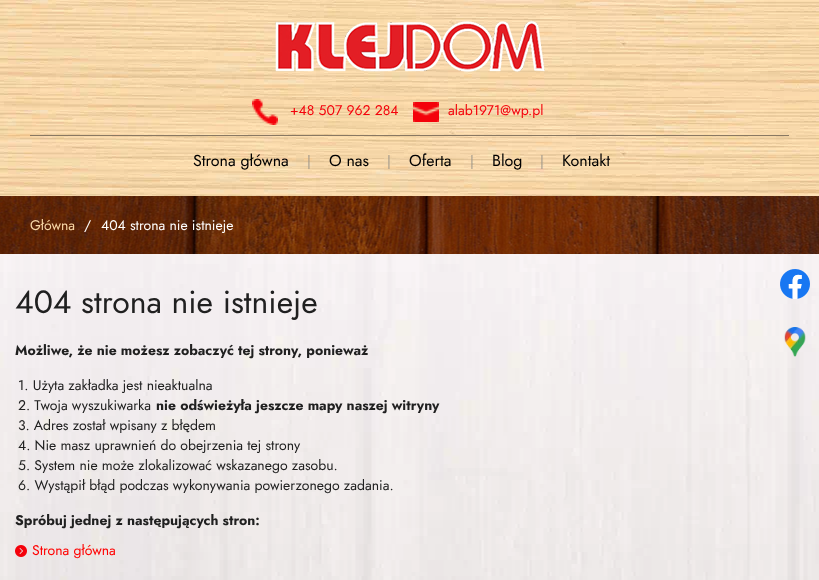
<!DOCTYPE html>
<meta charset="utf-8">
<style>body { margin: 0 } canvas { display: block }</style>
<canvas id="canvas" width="819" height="580"></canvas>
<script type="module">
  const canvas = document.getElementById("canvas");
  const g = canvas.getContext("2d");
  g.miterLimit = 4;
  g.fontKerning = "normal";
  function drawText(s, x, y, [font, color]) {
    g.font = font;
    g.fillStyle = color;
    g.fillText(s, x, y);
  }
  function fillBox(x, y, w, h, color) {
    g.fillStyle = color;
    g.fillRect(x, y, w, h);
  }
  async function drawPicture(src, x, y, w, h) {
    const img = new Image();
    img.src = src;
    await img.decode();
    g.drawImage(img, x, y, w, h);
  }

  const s1 = ["14px Jost", "#F4020B"];
  const s2 = ["16px Jost", "#000000"];
  const s3 = ["14px Jost", "#9F978B"];
  const s4 = ["14px Jost", "#F7D7A8"];
  const s5 = ["14px Jost", "#FFFFFF"];
  const s6 = ["32px Jost", "#202020"];
  const s7 = ["bold 14px Jost", "#202020"];
  const s8 = ["14px Jost", "#202020"];
  const s9 = ["14px Jost", "#FF0000"];

  fillBox(0, 0, 819, 580, "#FFFFFF");
  await drawPicture("pic1.png", 0, 254, 819, 326);
  await drawPicture("pic2.png", 0, 0, 819, 196);
  await drawPicture("pic3.png", 275, 20, 270, 52);
  fillBox(30, 135, 759, 1, "#897862");
  await drawPicture("pic4.png", 252, 99, 26, 26);
  drawText("+48 507 962 284", 290, 115, s1);
  await drawPicture("pic5.png", 413, 102, 26, 20);
  drawText("alab1971@wp.pl", 448, 115, s1);
  drawText("Strona główna", 193, 166, s2);
  drawText("|", 307, 166, s3);
  drawText("O nas", 329, 166, s2);
  drawText("|", 387, 166, s3);
  drawText("Oferta", 409, 166, s2);
  drawText("|", 470, 166, s3);
  drawText("Blog", 492, 166, s2);
  drawText("|", 540, 166, s3);
  drawText("Kontakt", 562, 166, s2);
  await drawPicture("pic6.png", 0, 196, 819, 58);
  drawText("Główna", 30, 230, s4);
  drawText("/", 84, 230, s5);
  drawText("404 strona nie istnieje", 101, 230, s5);
  drawText("404 strona nie istnieje", 15, 313, s6);
  drawText("Możliwe, że nie możesz zobaczyć tej strony, ponieważ", 15, 355, s7);
  drawText("1. Użyta zakładka jest nieaktualna", 18, 390, s8);
  drawText("2. Twoja wyszukiwarka", 18, 410, s8);
  drawText("nie odświeżyła jeszcze mapy naszej witryny", 156, 410, s7);
  drawText("3. Adres został wpisany z błędem", 18, 430, s8);
  drawText("4. Nie masz uprawnień do obejrzenia tej strony", 18, 450, s8);
  drawText("5. System nie może zlokalizować wskazanego zasobu.", 18, 470, s8);
  drawText("6. Wystąpił błąd podczas wykonywania powierzonego zadania.", 18, 490, s8);
  drawText("Spróbuj jednej z następujących stron:", 15, 525, s7);
  await drawPicture("pic7.png", 15, 545, 12, 12);
  drawText("Strona główna", 32, 555, s9);
  await drawPicture("pic8.png", 780, 269, 30, 30);
  await drawPicture("pic9.png", 784, 327, 22, 30);
</script>
